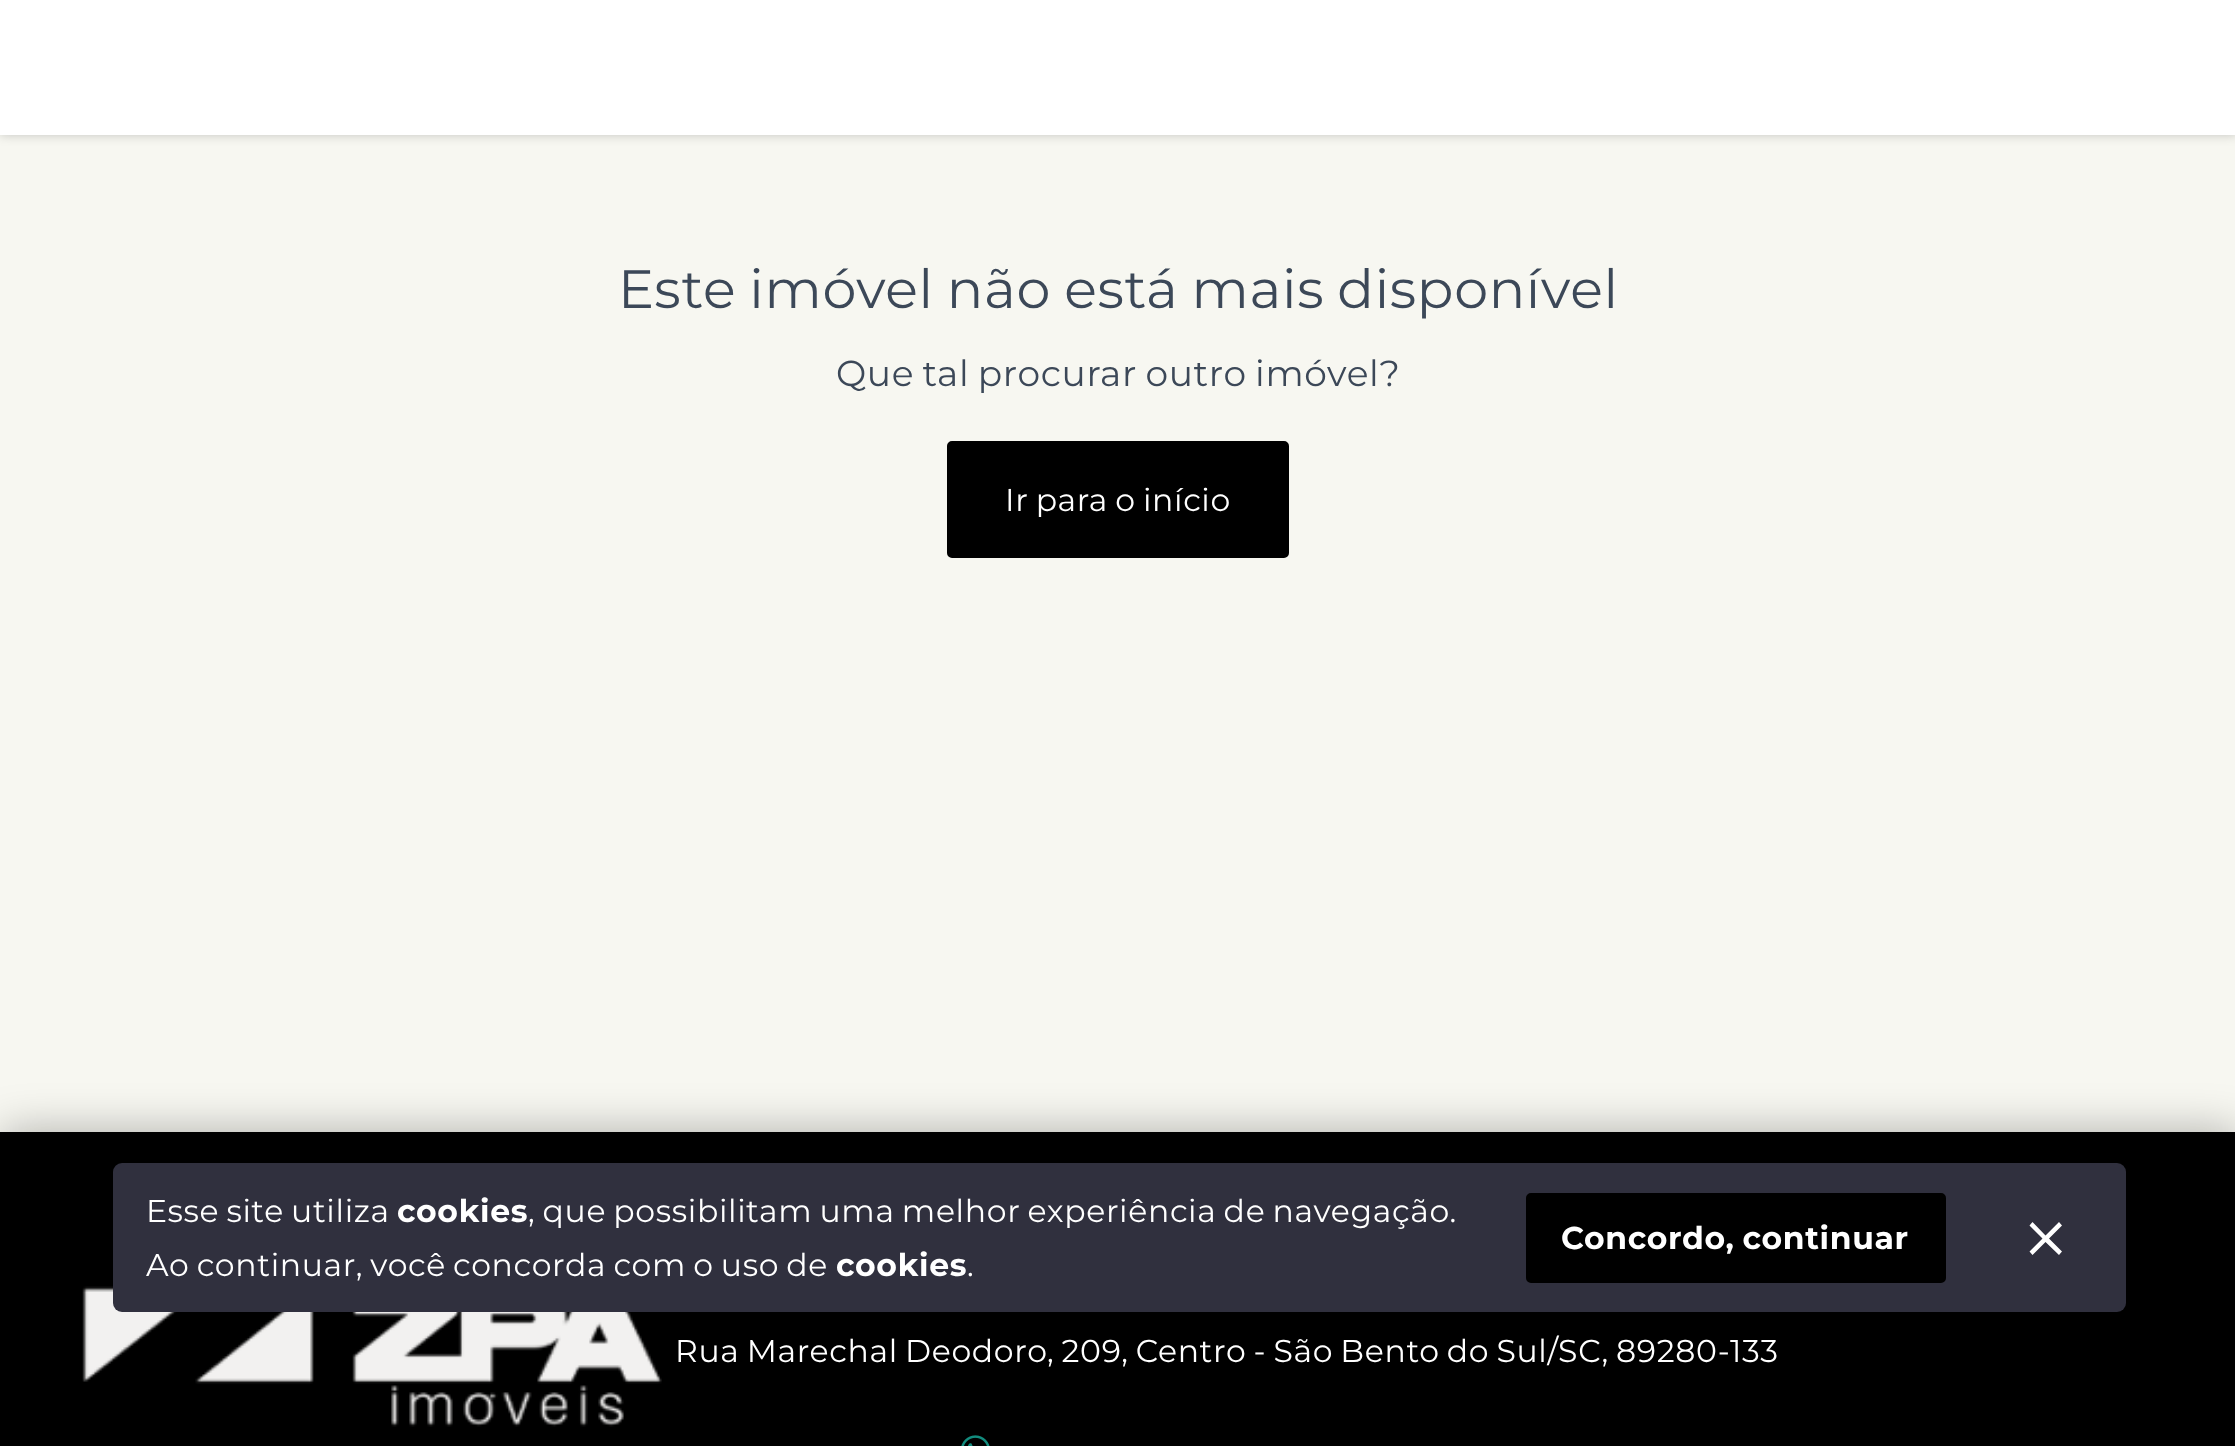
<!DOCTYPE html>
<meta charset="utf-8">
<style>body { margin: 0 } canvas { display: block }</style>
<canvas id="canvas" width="2235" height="1446"></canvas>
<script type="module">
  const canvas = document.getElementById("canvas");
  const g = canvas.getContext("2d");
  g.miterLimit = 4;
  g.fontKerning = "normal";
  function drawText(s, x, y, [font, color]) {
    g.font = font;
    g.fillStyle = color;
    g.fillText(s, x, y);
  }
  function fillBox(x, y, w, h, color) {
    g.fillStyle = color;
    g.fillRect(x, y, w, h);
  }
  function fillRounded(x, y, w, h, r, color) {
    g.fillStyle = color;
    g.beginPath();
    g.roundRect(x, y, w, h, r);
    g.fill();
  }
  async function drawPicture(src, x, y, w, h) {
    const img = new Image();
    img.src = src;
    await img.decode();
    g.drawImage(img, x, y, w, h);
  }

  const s1 = ["54px Montserrat", "#3C4858"];
  const s2 = ["36px Montserrat", "#3C4858"];
  const s3 = ["31.5px Montserrat", "#FFFFFF"];
  const s4 = ["bold 31.5px Montserrat", "#FFFFFF"];

  fillBox(0, 0, 2235, 1446, "#F7F7F1");
  g.fillStyle = "rgba(0, 0, 0, 0.2)";
  g.filter = "blur(5.5px)";
  g.beginPath();
  g.rect(0, 0, 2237, 135);
  g.fill();
  g.filter = "none";
  fillBox(0, 0, 2235, 135, "#FFFFFF");
  g.letterSpacing = "0.67px";
  g.wordSpacing = "-1.75px";
  drawText("Este imóvel não está mais disponível", 618, 308, s1);
  drawText("Que tal procurar outro imóvel?", 836, 386, s2);
  g.fillStyle = "#000000";
  g.beginPath();
  g.roundRect(948, 442, 340, 115, 4);
  g.fill();
  g.strokeStyle = "#000000";
  g.lineWidth = 2;
  g.stroke();
  drawText("Ir para o início", 1005, 511, s3);
  g.fillStyle = "rgba(0, 0, 0, 0.3)";
  g.filter = "blur(22.5px)";
  g.beginPath();
  g.rect(2, 1132, 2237, 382);
  g.fill();
  g.filter = "none";
  fillBox(0, 1132, 2235, 314, "#000000");
  await drawPicture("pic1.png", 82, 1286, 580, 141);
  drawText("Rua Marechal Deodoro, 209, Centro - São Bento do Sul/SC, 89280-133", 675, 1362, s3);
  await drawPicture("pic2.png", 961, 1435, 29, 11);
  fillRounded(113, 1163, 2013, 149, 9, "#30303E");
  drawText("Esse site utiliza", 146, 1222, s3);
  g.wordSpacing = "0px";
  drawText("cookies", 397, 1222, s4);
  g.wordSpacing = "-1.75px";
  drawText(", que possibilitam uma melhor experiência de navegação.", 528, 1222, s3);
  drawText("Ao continuar, você concorda com o uso de", 146, 1276, s3);
  g.wordSpacing = "0px";
  drawText("cookies", 836, 1276, s4);
  drawText(".", 967, 1276, s3);
  g.fillStyle = "#000000";
  g.beginPath();
  g.roundRect(1527, 1194, 418, 88, 4);
  g.fill();
  g.stroke();
  g.wordSpacing = "-1.75px";
  drawText("Concordo, continuar", 1561, 1249, s4);
  g.beginPath();
  g.moveTo(2062, 1225.5);
  g.lineTo(2059, 1222);
  g.lineTo(2045.5, 1235.5);
  g.lineTo(2032.5, 1222);
  g.lineTo(2029.5, 1225.5);
  g.lineTo(2042.5, 1238.5);
  g.lineTo(2029.5, 1251.5);
  g.lineTo(2032.5, 1255);
  g.lineTo(2045.5, 1242);
  g.lineTo(2059, 1255);
  g.lineTo(2062, 1251.5);
  g.lineTo(2049, 1238.5);
  g.closePath();
  g.fill();
</script>
